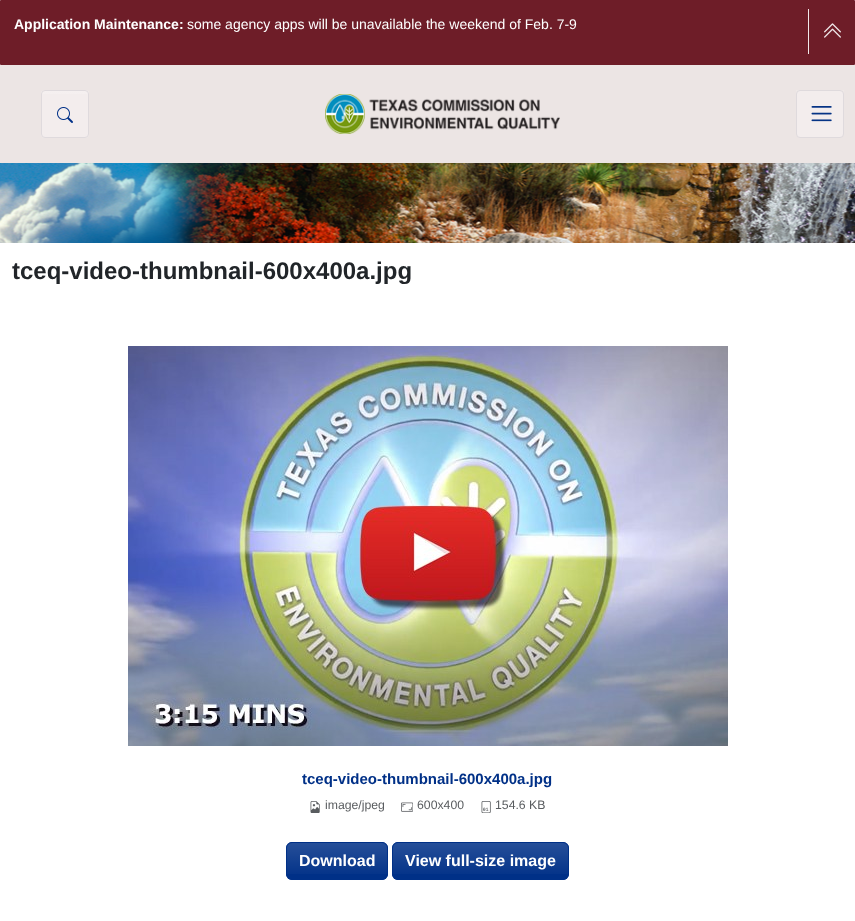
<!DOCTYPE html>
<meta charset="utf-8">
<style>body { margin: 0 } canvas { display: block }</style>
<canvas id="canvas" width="855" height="921"></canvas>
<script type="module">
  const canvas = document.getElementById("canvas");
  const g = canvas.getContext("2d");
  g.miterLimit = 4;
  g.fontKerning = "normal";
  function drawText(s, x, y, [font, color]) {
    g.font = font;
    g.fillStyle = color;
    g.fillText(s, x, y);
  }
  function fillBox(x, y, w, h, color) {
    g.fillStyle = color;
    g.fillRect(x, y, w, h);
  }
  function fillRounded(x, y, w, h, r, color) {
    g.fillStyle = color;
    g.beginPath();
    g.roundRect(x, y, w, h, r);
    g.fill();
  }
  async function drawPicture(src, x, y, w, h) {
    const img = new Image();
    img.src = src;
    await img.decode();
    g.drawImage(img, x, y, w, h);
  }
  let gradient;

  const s1 = ["bold 14px Liberation Sans", "#FFFFFF"];
  const s2 = ["14px Liberation Sans", "#FFFFFF"];
  const s3 = ["bold 24px Liberation Sans", "#212529"];
  const s4 = ["bold 15px Liberation Sans", "#003087"];
  const s5 = ["12.25px Liberation Sans", "#595C5F"];
  const s6 = ["bold 16px Liberation Sans", "#FFFFFF"];

  fillBox(0, 0, 855, 921, "#FFFFFF");
  fillRounded(0, 0, 855, 65, 1, "#6E1D28");
  drawText("Application Maintenance:", 14, 29, s1);
  drawText("some agency apps will be unavailable the weekend of Feb. 7-9", 187, 29, s2);
  await drawPicture("pic1.png", 824, 23, 17, 15);
  fillBox(808, 9, 1, 45, "#F1E8EA");
  fillBox(0, 65, 855, 98, "#ECE5E4");
  fillRounded(41, 90, 48, 48, 4, "#F3EDED");
  gradient = g.createLinearGradient(65, 91, 65, 137);
  gradient.addColorStop(0, "rgba(255, 255, 255, 0.15)");
  gradient.addColorStop(1, "rgba(255, 255, 255, 0)");
  g.fillStyle = gradient;
  g.fillRect(41, 91, 48, 3);
  g.beginPath();
  g.roundRect(41.5, 90.5, 47, 47, 3.5);
  g.strokeStyle = "#DFDADD";
  g.stroke();
  await drawPicture("pic2.png", 57, 107, 16, 16);
  await drawPicture("pic3.png", 325, 94, 235, 40);
  gradient = g.createLinearGradient(820, 90, 820, 138);
  gradient.addColorStop(0, "#EFE9E8");
  gradient.addColorStop(1, "#ECE5E4");
  g.fillStyle = gradient;
  g.fillRect(796, 90, 48, 18);
  g.fillStyle = "#F3EDED";
  g.beginPath();
  g.roundRect(796.5, 90.5, 47, 47, 3.5);
  g.fill();
  g.stroke();
  await drawPicture("pic4.png", 811, 106, 21, 16);
  await drawPicture("pic5.png", 0, 163, 855, 80);
  drawText("tceq-video-thumbnail-600x400a.jpg", 12, 279, s3);
  await drawPicture("pic6.png", 128, 346, 600, 400);
  drawText("tceq-video-thumbnail-600x400a.jpg", 302, 784, s4);
  await drawPicture("pic7.png", 310, 801, 10, 12);
  drawText("image/jpeg", 325, 809, s5);
  await drawPicture("pic8.png", 401, 802, 12, 10);
  drawText("600x400", 417, 809, s5);
  await drawPicture("pic9.png", 481, 801, 10, 12);
  drawText("154.6 KB", 495, 809, s5);
  fillRounded(286, 842, 102, 38, 6, "#003087");
  g.save();
  g.beginPath();
  g.roundRect(286, 842, 102, 38, 6);
  g.clip();
  gradient = g.createLinearGradient(337, 843, 337, 879);
  gradient.addColorStop(0, "rgba(255, 255, 255, 0.15)");
  gradient.addColorStop(1, "rgba(255, 255, 255, 0)");
  g.fillStyle = gradient;
  g.fillRect(286, 843, 102, 31);
  g.restore();
  g.beginPath();
  g.roundRect(286.5, 842.5, 101, 37, 5.5);
  g.strokeStyle = "#003087";
  g.stroke();
  drawText("Download", 299, 866, s6);
  fillRounded(392, 842, 177, 38, 6, "#003087");
  g.save();
  g.beginPath();
  g.roundRect(392, 842, 177, 38, 6);
  g.clip();
  gradient = g.createLinearGradient(481, 843, 481, 879);
  gradient.addColorStop(0, "rgba(255, 255, 255, 0.15)");
  gradient.addColorStop(1, "rgba(255, 255, 255, 0)");
  g.fillStyle = gradient;
  g.fillRect(392, 843, 177, 31);
  g.restore();
  g.beginPath();
  g.roundRect(392.5, 842.5, 176, 37, 5.5);
  g.stroke();
  drawText("View full-size image", 405, 866, s6);
</script>
